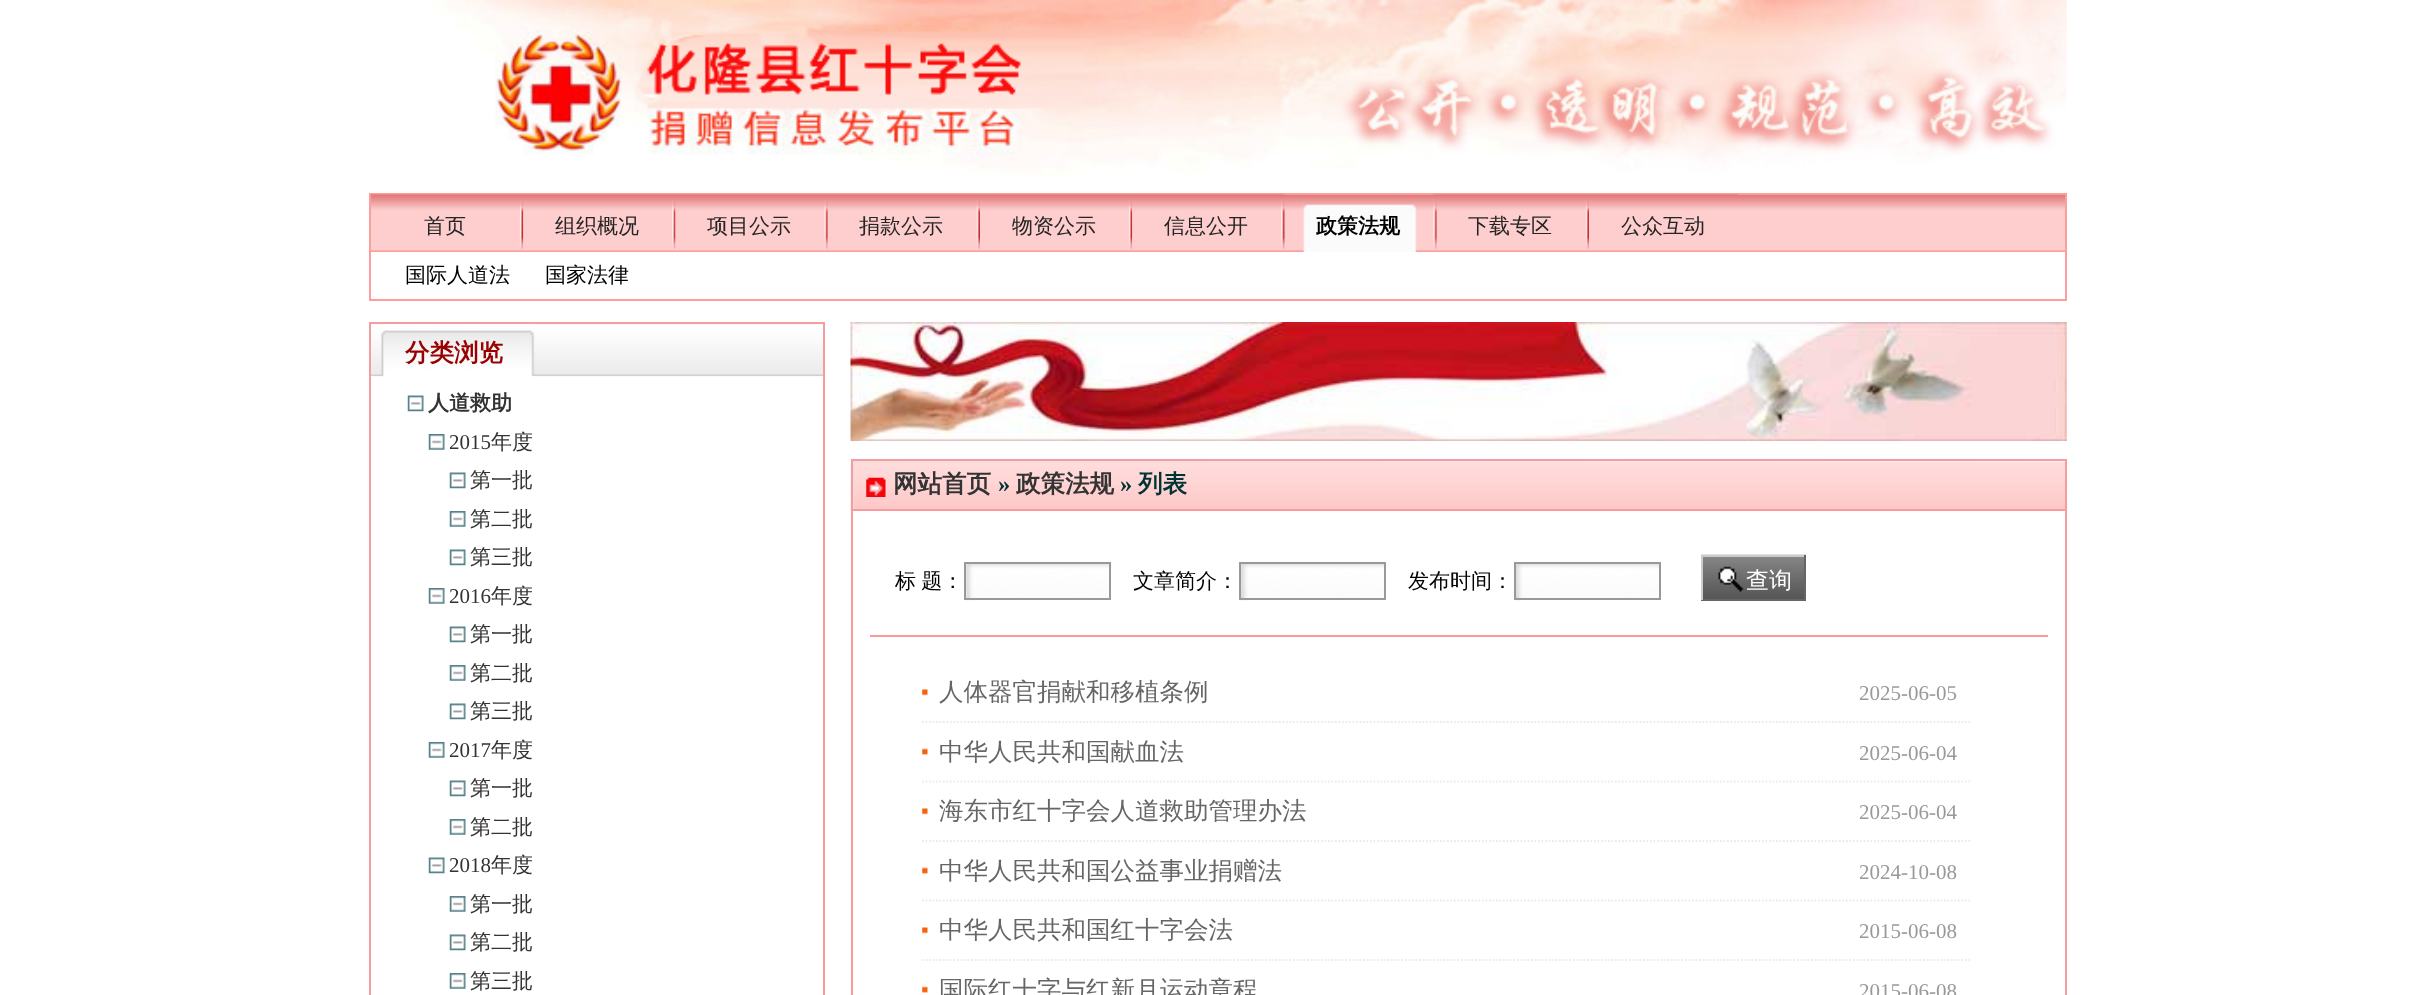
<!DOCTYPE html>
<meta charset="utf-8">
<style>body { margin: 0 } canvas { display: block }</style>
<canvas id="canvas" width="2433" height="995"></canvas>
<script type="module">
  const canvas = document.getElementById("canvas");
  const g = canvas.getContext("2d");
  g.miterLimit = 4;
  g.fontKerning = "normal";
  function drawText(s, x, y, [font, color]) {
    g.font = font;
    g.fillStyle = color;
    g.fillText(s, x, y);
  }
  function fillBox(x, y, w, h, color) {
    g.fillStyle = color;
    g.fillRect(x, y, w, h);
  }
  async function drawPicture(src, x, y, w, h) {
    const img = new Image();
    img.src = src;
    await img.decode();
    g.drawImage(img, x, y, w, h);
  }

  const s1 = ["500 21px WenQuanYi Zen Hei", "#242424"];
  const s2 = ["bold 21px WenQuanYi Zen Hei", "#000000"];
  const s3 = ["500 21px WenQuanYi Zen Hei", "#000000"];
  const s4 = ["bold 24.5px WenQuanYi Zen Hei", "#990000"];
  const s5 = ["bold 21px WenQuanYi Zen Hei", "#333333"];
  const s6 = ["21px Liberation Serif", "#333333"];
  const s7 = ["500 21px WenQuanYi Zen Hei", "#333333"];
  const s8 = ["bold 24.5px WenQuanYi Zen Hei", "#333333"];
  const s9 = ["bold 24.5px Liberation Serif", "#003333"];
  const s10 = ["bold 24.5px WenQuanYi Zen Hei", "#003333"];
  const s11 = ["500 23px WenQuanYi Zen Hei", "#FFFFFF"];
  const s12 = ["500 24.5px WenQuanYi Zen Hei", "#666666"];
  const s13 = ["21px Liberation Serif", "#999999"];

  fillBox(0, 0, 2433, 995, "#FFFFFF");
  await drawPicture("pic1.png", 433, 0, 1634, 177);
  await drawPicture("pic2.png", 371, 195, 1694, 57);
  g.strokeStyle = "#FC9E9E";
  g.lineWidth = 2;
  g.strokeRect(370, 194, 1696, 106);
  await drawPicture("pic4.png", 519, 194, 5, 55);
  await drawPicture("pic3.png", 371, 194, 149, 44);
  drawText("首页", 424, 233, s1);
  await drawPicture("pic5.png", 523, 194, 149, 55);
  drawText("组织概况", 555, 233, s1);
  await drawPicture("pic6.png", 672, 194, 4, 55);
  await drawPicture("pic8.png", 824, 194, 4, 55);
  await drawPicture("pic7.png", 675, 194, 150, 55);
  drawText("项目公示", 707, 233, s1);
  await drawPicture("pic10.png", 976, 194, 4, 55);
  await drawPicture("pic9.png", 827, 194, 150, 55);
  drawText("捐款公示", 859, 233, s1);
  await drawPicture("pic4.png", 1128, 194, 5, 55);
  await drawPicture("pic3.png", 980, 194, 149, 44);
  drawText("物资公示", 1012, 233, s1);
  await drawPicture("pic5.png", 1132, 194, 149, 55);
  drawText("信息公开", 1164, 233, s1);
  await drawPicture("pic6.png", 1281, 194, 4, 55);
  await drawPicture("pic11.png", 1303, 204, 114, 48);
  drawText("政策法规", 1316, 233, s2);
  await drawPicture("pic8.png", 1433, 194, 4, 55);
  await drawPicture("pic10.png", 1585, 194, 4, 55);
  await drawPicture("pic9.png", 1436, 194, 150, 55);
  drawText("下载专区", 1468, 233, s1);
  await drawPicture("pic12.png", 1589, 194, 149, 1);
  drawText("公众互动", 1621, 233, s1);
  drawText("国际人道法", 405, 282, s3);
  drawText("国家法律", 545, 282, s3);
  fillBox(823, 376, 2, 619, "#F69C9E");
  fillBox(369, 376, 2, 619, "#F69C9E");
  await drawPicture("pic13.png", 369, 324, 456, 53);
  fillBox(369, 322, 455, 2, "#F69C9E");
  fillBox(823, 322, 2, 54, "#F69C9E");
  fillBox(369, 322, 2, 54, "#F69C9E");
  drawText("分类浏览", 405, 361, s4);
  await drawPicture("pic14.png", 407, 395, 17, 17);
  drawText("人道救助", 428, 410, s5);
  await drawPicture("pic15.png", 428, 434, 17, 16);
  drawText("2015", 449, 449, s6);
  drawText("年度", 491, 449, s7);
  await drawPicture("pic14.png", 449, 472, 17, 17);
  drawText("第一批", 470, 487, s7);
  await drawPicture("pic15.png", 449, 511, 17, 16);
  drawText("第二批", 470, 526, s7);
  await drawPicture("pic14.png", 449, 549, 17, 17);
  drawText("第三批", 470, 564, s7);
  await drawPicture("pic15.png", 428, 588, 17, 16);
  drawText("2016", 449, 603, s6);
  drawText("年度", 491, 603, s7);
  await drawPicture("pic14.png", 449, 626, 17, 17);
  drawText("第一批", 470, 641, s7);
  await drawPicture("pic15.png", 449, 665, 17, 16);
  drawText("第二批", 470, 680, s7);
  await drawPicture("pic14.png", 449, 703, 17, 17);
  drawText("第三批", 470, 718, s7);
  await drawPicture("pic15.png", 428, 742, 17, 16);
  drawText("2017", 449, 757, s6);
  drawText("年度", 491, 757, s7);
  await drawPicture("pic14.png", 449, 780, 17, 17);
  drawText("第一批", 470, 795, s7);
  await drawPicture("pic15.png", 449, 819, 17, 16);
  drawText("第二批", 470, 834, s7);
  await drawPicture("pic14.png", 428, 857, 17, 17);
  drawText("2018", 449, 872, s6);
  drawText("年度", 491, 872, s7);
  await drawPicture("pic15.png", 449, 896, 17, 16);
  drawText("第一批", 470, 911, s7);
  await drawPicture("pic14.png", 449, 934, 17, 17);
  drawText("第二批", 470, 949, s7);
  await drawPicture("pic15.png", 449, 973, 17, 16);
  drawText("第三批", 470, 988, s7);
  await drawPicture("pic16.png", 850, 322, 1217, 119);
  await drawPicture("pic17.png", 850, 460, 1215, 51);
  g.strokeStyle = "#F69C9E";
  g.strokeRect(852, 460, 1214, 50);
  await drawPicture("pic18.png", 866, 477, 20, 20);
  drawText("网站首页", 893, 492, s8);
  drawText("»", 998, 492, s9);
  drawText("政策法规", 1016, 492, s8);
  drawText("»", 1120, 492, s9);
  drawText("列表", 1138, 492, s10);
  fillBox(2065, 511, 2, 484, "#F69C9E");
  fillBox(851, 511, 2, 484, "#F69C9E");
  g.wordSpacing = "-1px";
  drawText("标 题：", 895, 588, s3);
  await drawPicture("pic19.png", 965, 562, 147, 39);
  g.strokeStyle = "#999999";
  g.strokeRect(965, 563, 145, 36);
  g.wordSpacing = "0px";
  drawText("文章简介：", 1133, 588, s3);
  await drawPicture("pic20.png", 1240, 564, 146, 37);
  g.strokeRect(1240, 563, 145, 36);
  drawText("发布时间：", 1408, 588, s3);
  await drawPicture("pic21.png", 1515, 564, 146, 37);
  g.strokeRect(1515, 563, 145, 36);
  await drawPicture("pic22.png", 1701, 554, 105, 45);
  fillBox(1701, 555, 105, 2, "#CCCCCC");
  fillBox(1804, 555, 2, 45, "#666666");
  fillBox(1701, 599, 105, 2, "#666666");
  fillBox(1701, 555, 2, 45, "#CCCCCC");
  drawText("查询", 1746, 588, s11);
  fillBox(870, 635, 1178, 2, "#F69C9E");
  await drawPicture("pic23.png", 922, 689, 6, 7);
  g.beginPath();
  g.moveTo(922, 722);
  g.lineTo(1972, 722);
  g.strokeStyle = "#EBEBEB";
  g.lineWidth = 1.8;
  g.setLineDash([1.75, 1.75]);
  g.stroke();
  drawText("人体器官捐献和移植条例", 939, 700, s12);
  drawText("2025-06-05", 1859, 700, s13);
  await drawPicture("pic24.png", 922, 748, 6, 7);
  g.beginPath();
  g.moveTo(922, 781.5);
  g.lineTo(1972, 781.5);
  g.stroke();
  drawText("中华人民共和国献血法", 939, 760, s12);
  drawText("2025-06-04", 1859, 760, s13);
  await drawPicture("pic23.png", 922, 808, 6, 7);
  g.beginPath();
  g.moveTo(922, 841);
  g.lineTo(1972, 841);
  g.stroke();
  drawText("海东市红十字会人道救助管理办法", 939, 819, s12);
  drawText("2025-06-04", 1859, 819, s13);
  await drawPicture("pic24.png", 922, 867, 6, 7);
  g.beginPath();
  g.moveTo(922, 900.5);
  g.lineTo(1972, 900.5);
  g.stroke();
  drawText("中华人民共和国公益事业捐赠法", 939, 879, s12);
  drawText("2024-10-08", 1859, 879, s13);
  await drawPicture("pic23.png", 922, 927, 6, 7);
  g.beginPath();
  g.moveTo(922, 960);
  g.lineTo(1972, 960);
  g.stroke();
  drawText("中华人民共和国红十字会法", 939, 938, s12);
  drawText("2015-06-08", 1859, 938, s13);
  await drawPicture("pic24.png", 922, 986, 6, 7);
  drawText("国际红十字与红新月运动章程", 939, 998, s12);
  drawText("2015-06-08", 1859, 998, s13);
</script>
